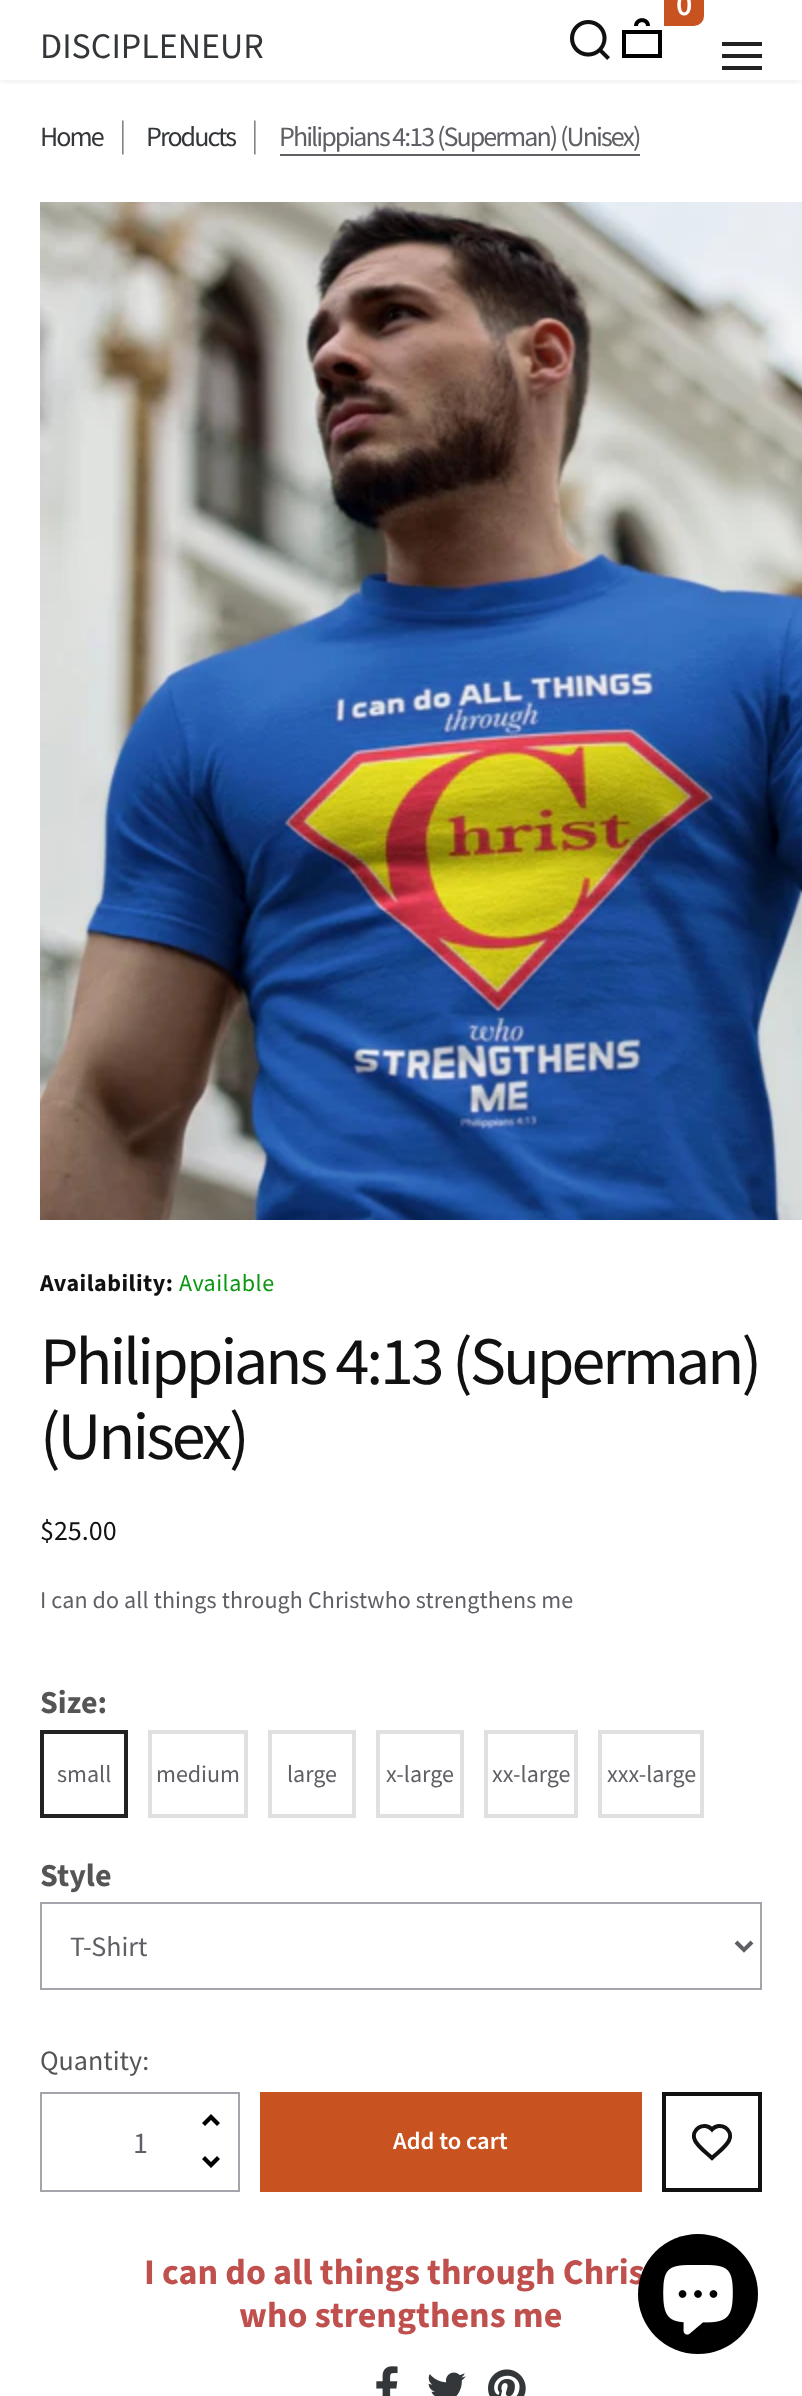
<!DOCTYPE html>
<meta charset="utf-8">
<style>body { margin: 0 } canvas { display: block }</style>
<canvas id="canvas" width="802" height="2396"></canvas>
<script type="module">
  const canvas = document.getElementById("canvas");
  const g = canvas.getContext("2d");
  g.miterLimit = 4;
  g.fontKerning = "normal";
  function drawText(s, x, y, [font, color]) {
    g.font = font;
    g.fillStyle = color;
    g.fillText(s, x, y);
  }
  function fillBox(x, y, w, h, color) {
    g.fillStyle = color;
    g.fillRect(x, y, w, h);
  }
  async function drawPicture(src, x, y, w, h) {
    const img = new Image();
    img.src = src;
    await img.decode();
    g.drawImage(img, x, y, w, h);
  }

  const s1 = ["600 32px Source Sans Pro", "#FFFFFF"];
  const s2 = ["36px Source Sans Pro", "#34373A"];
  const s3 = ["28px Source Sans Pro", "#34373A"];
  const s4 = ["300 34px Source Sans Pro", "#5F6065"];
  const s5 = ["28px Source Sans Pro", "#5F6065"];
  const s6 = ["bold 24px Source Sans Pro", "#111111"];
  const s7 = ["24px Source Sans Pro", "#0C9712"];
  const s8 = ["68px Source Sans Pro", "#111111"];
  const s9 = ["28px Source Sans Pro", "#111111"];
  const s10 = ["24px Source Sans Pro", "#5F6065"];
  const s11 = ["bold 32px Source Sans Pro", "#555555"];
  const s12 = ["28px Source Sans Pro", "#555555"];
  const s13 = ["30px Source Sans Pro", "#5F6065"];
  const s14 = ["600 24.5px Source Sans Pro", "#FFFFFF"];
  const s15 = ["bold 36px Source Sans Pro", "#C0504D"];

  fillBox(0, 0, 802, 2396, "#FFFFFF");
  g.save();
  g.beginPath();
  g.rect(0, 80, 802, 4);
  g.clip();
  g.fillStyle = "rgba(0, 0, 0, 0.1)";
  g.filter = "blur(5px)";
  g.beginPath();
  g.rect(0, 0, 802, 80);
  g.fill();
  g.filter = "none";
  g.restore();
  g.fillStyle = "#C85220";
  g.beginPath();
  g.roundRect(664, 0, 40, 26, [0, 0, 10, 0]);
  g.fill();
  drawText("0", 676, 15, s1);
  await drawPicture("pic1.png", 622, 18, 40, 40);
  await drawPicture("pic2.png", 570, 20, 40, 40);
  drawText("DISCIPLENEUR", 40, 58, s2);
  fillBox(722, 42, 40, 4, "#222222");
  fillBox(722, 54, 40, 4, "#222222");
  fillBox(722, 66, 40, 4, "#222222");
  g.letterSpacing = "-1.95px";
  drawText("Home", 40, 146, s3);
  g.letterSpacing = "0px";
  drawText("|", 119, 146, s4);
  g.letterSpacing = "-1.95px";
  drawText("Products", 146, 146, s3);
  g.letterSpacing = "0px";
  drawText("|", 251, 146, s4);
  g.letterSpacing = "-1.95px";
  drawText("Philippians 4:13 (Superman) (Unisex)", 279, 146, s5);
  fillBox(280, 154, 360, 2, "#5F6065");
  await drawPicture("pic3.png", 40, 202, 762, 1018);
  g.letterSpacing = "0.5px";
  drawText("Availability:", 40, 1291, s6);
  drawText("Available", 179, 1291, s7);
  g.letterSpacing = "-3.05px";
  drawText("Philippians 4:13 (Superman)", 40, 1384, s8);
  drawText("(Unisex)", 40, 1459, s8);
  g.letterSpacing = "0px";
  drawText("$25.00", 40, 1540, s9);
  g.letterSpacing = "0.12px";
  drawText("I can do all things through Christwho strengthens me", 40, 1608, s10);
  g.letterSpacing = "0px";
  drawText("Size:", 40, 1713, s11);
  g.strokeStyle = "#222222";
  g.lineWidth = 4;
  g.strokeRect(42, 1732, 84, 84);
  drawText("small", 57, 1782, s10);
  g.strokeStyle = "#E0E0E0";
  g.strokeRect(150, 1732, 96, 84);
  drawText("medium", 156, 1782, s10);
  g.strokeRect(270, 1732, 84, 84);
  drawText("large", 287, 1782, s10);
  g.strokeRect(378, 1732, 84, 84);
  drawText("x-large", 386, 1782, s10);
  g.strokeRect(486, 1732, 90, 84);
  drawText("xx-large", 492, 1782, s10);
  g.strokeRect(600, 1732, 102, 84);
  drawText("xxx-large", 607, 1782, s10);
  drawText("Style", 40, 1886, s11);
  g.strokeStyle = "#A4A5AC";
  g.lineWidth = 2;
  g.strokeRect(41, 1903, 720, 86);
  g.beginPath();
  g.moveTo(736, 1942);
  g.lineTo(744, 1950);
  g.lineTo(752, 1942);
  g.strokeStyle = "#5F6065";
  g.lineWidth = 4;
  g.stroke();
  drawText("T-Shirt", 70, 1956, s5);
  drawText("Quantity:", 40, 2070, s12);
  g.strokeStyle = "#A4A5AC";
  g.lineWidth = 2;
  g.strokeRect(41, 2093, 198, 98);
  drawText("1", 133, 2153, s13);
  g.fillStyle = "#000000";
  g.beginPath();
  g.moveTo(220, 2123);
  g.lineTo(217, 2126);
  g.lineTo(211, 2120);
  g.lineTo(205, 2126);
  g.lineTo(202, 2123);
  g.lineTo(211, 2114);
  g.closePath();
  g.moveTo(220, 2159);
  g.lineTo(217, 2156);
  g.lineTo(211, 2162);
  g.lineTo(205, 2156);
  g.lineTo(202, 2159);
  g.lineTo(211, 2168);
  g.closePath();
  g.fill();
  fillBox(260, 2092, 382, 100, "#C85220");
  drawText("Add to cart", 393, 2149, s14);
  g.strokeStyle = "#111111";
  g.lineWidth = 4;
  g.strokeRect(664, 2094, 96, 96);
  g.beginPath();
  g.moveTo(712, 2158);
  g.bezierCurveTo(706.5, 2152.5, 698.5, 2147.5, 695, 2140.5);
  g.bezierCurveTo(690, 2129, 704.5, 2121, 712, 2129.5);
  g.bezierCurveTo(719.5, 2121, 734, 2129, 729, 2140.5);
  g.bezierCurveTo(725.5, 2147.5, 717.5, 2152.5, 712, 2158);
  g.closePath();
  g.lineCap = "round";
  g.stroke();
  drawText("I can do all things through Chris", 144, 2284, s15);
  drawText("who strengthens me", 239, 2327, s15);
  await drawPicture("pic4.png", 376, 2366, 22, 30);
  await drawPicture("pic5.png", 428, 2372, 38, 24);
  await drawPicture("pic6.png", 488, 2369, 38, 27);
  g.fillStyle = "#000000";
  g.beginPath();
  g.arc(698, 2294, 60, 0, Math.PI * 2);
  g.fill();
  await drawPicture("pic7.png", 663, 2265, 70, 70);
</script>
